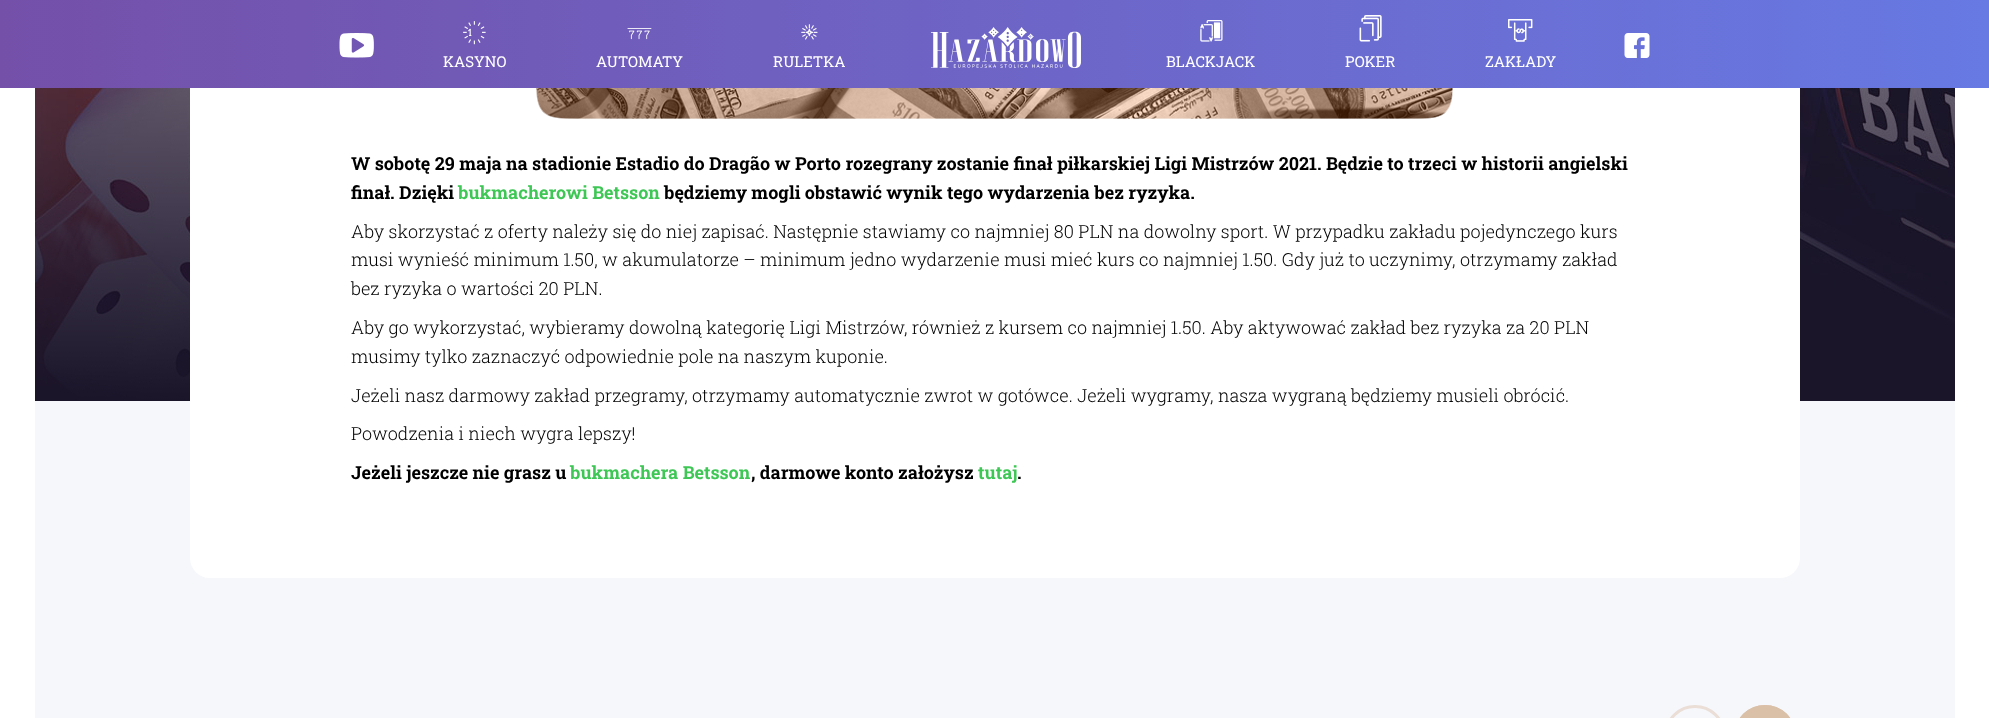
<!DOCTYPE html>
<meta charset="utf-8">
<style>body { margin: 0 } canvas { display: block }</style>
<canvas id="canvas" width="1989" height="718"></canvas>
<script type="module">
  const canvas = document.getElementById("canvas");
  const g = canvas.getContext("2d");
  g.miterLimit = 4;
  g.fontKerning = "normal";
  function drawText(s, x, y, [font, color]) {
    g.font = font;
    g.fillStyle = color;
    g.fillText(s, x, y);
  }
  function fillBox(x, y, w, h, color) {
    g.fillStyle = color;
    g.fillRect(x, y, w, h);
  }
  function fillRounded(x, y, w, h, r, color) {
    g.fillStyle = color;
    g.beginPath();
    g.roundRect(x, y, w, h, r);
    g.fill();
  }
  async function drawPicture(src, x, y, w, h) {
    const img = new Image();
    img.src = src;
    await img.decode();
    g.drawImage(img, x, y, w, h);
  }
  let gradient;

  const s1 = ["15px Roboto Slab", "#FFFFFF"];
  const s2 = ["bold 18px Roboto Slab", "#000000"];
  const s3 = ["bold 18px Roboto Slab", "#3FC756"];
  const s4 = ["300 18px Roboto Slab", "#000000"];

  fillBox(0, 0, 1989, 718, "#FFFFFF");
  fillBox(35, 401, 1920, 317, "#F6F7FB");
  await drawPicture("pic10.png", 35, 88, 1920, 313);
  fillRounded(190, -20, 1610, 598, 20, "#FFFFFF");
  gradient = g.createLinearGradient(1989, 44, 0, 44);
  gradient.addColorStop(0, "#6779E3");
  gradient.addColorStop(1, "#7450A9");
  g.fillStyle = gradient;
  g.fillRect(0, 0, 1989, 88);
  await drawPicture("pic1.png", 339, 33, 35, 25);
  await drawPicture("pic2.png", 931, 27, 150, 41);
  await drawPicture("pic3.png", 1624, 33, 26, 25);
  await drawPicture("pic4.png", 463, 21, 23, 24);
  drawText("KASYNO", 443, 67, s1);
  await drawPicture("pic5.png", 627, 28, 25, 12);
  drawText("AUTOMATY", 596, 67, s1);
  await drawPicture("pic6.png", 801, 24, 17, 16);
  drawText("RULETKA", 773, 67, s1);
  await drawPicture("pic7.png", 1200, 20, 23, 22);
  drawText("BLACKJACK", 1166, 67, s1);
  await drawPicture("pic8.png", 1359, 15, 23, 27);
  drawText("POKER", 1345, 67, s1);
  await drawPicture("pic9.png", 1508, 19, 25, 23);
  drawText("ZAKŁADY", 1485, 67, s1);
  await drawPicture("pic11.png", 536, 88, 917, 31);
  drawText("W sobotę 29 maja na stadionie Estadio do Dragão w Porto rozegrany zostanie finał piłkarskiej Ligi Mistrzów 2021. Będzie to trzeci w historii angielski", 351, 170, s2);
  drawText("finał. Dzięki", 351, 199, s2);
  drawText("bukmacherowi Betsson", 458, 199, s3);
  drawText("będziemy mogli obstawić wynik tego wydarzenia bez ryzyka.", 664, 199, s2);
  drawText("Aby skorzystać z oferty należy się do niej zapisać. Następnie stawiamy co najmniej 80 PLN na dowolny sport. W przypadku zakładu pojedynczego kurs", 351, 238, s4);
  drawText("musi wynieść minimum 1.50, w akumulatorze – minimum jedno wydarzenie musi mieć kurs co najmniej 1.50. Gdy już to uczynimy, otrzymamy zakład", 351, 266, s4);
  drawText("bez ryzyka o wartości 20 PLN.", 351, 295, s4);
  drawText("Aby go wykorzystać, wybieramy dowolną kategorię Ligi Mistrzów, również z kursem co najmniej 1.50. Aby aktywować zakład bez ryzyka za 20 PLN", 351, 334, s4);
  drawText("musimy tylko zaznaczyć odpowiednie pole na naszym kuponie.", 351, 363, s4);
  drawText("Jeżeli nasz darmowy zakład przegramy, otrzymamy automatycznie zwrot w gotówce. Jeżeli wygramy, nasza wygraną będziemy musieli obrócić.", 351, 402, s4);
  drawText("Powodzenia i niech wygra lepszy!", 351, 440, s4);
  drawText("Jeżeli jeszcze nie grasz u", 351, 479, s2);
  drawText("bukmachera Betsson", 570, 479, s3);
  drawText(", darmowe konto założysz", 751, 479, s2);
  drawText("tutaj", 978, 479, s3);
  drawText(".", 1017, 479, s2);
  g.beginPath();
  g.moveTo(1695, 706.5);
  g.bezierCurveTo(1710.5, 706.5, 1723.5, 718.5, 1723.5, 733.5);
  g.bezierCurveTo(1723.5, 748.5, 1710.5, 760.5, 1695, 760.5);
  g.bezierCurveTo(1679.5, 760.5, 1666.5, 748.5, 1666.5, 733.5);
  g.bezierCurveTo(1666.5, 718.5, 1679.5, 706.5, 1695, 706.5);
  g.closePath();
  g.strokeStyle = "#EADED6";
  g.lineWidth = 3;
  g.stroke();
  g.fillStyle = "#DBC0A8";
  g.beginPath();
  g.ellipse(1765, 733.5, 30, 28.5, 0, 0, Math.PI * 2);
  g.fill();
  g.beginPath();
  g.moveTo(1765, 706.5);
  g.bezierCurveTo(1780.5, 706.5, 1793.5, 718.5, 1793.5, 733.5);
  g.bezierCurveTo(1793.5, 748.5, 1780.5, 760.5, 1765, 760.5);
  g.bezierCurveTo(1749.5, 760.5, 1736.5, 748.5, 1736.5, 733.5);
  g.bezierCurveTo(1736.5, 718.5, 1749.5, 706.5, 1765, 706.5);
  g.closePath();
  g.strokeStyle = "#DBC0A8";
  g.stroke();
</script>
